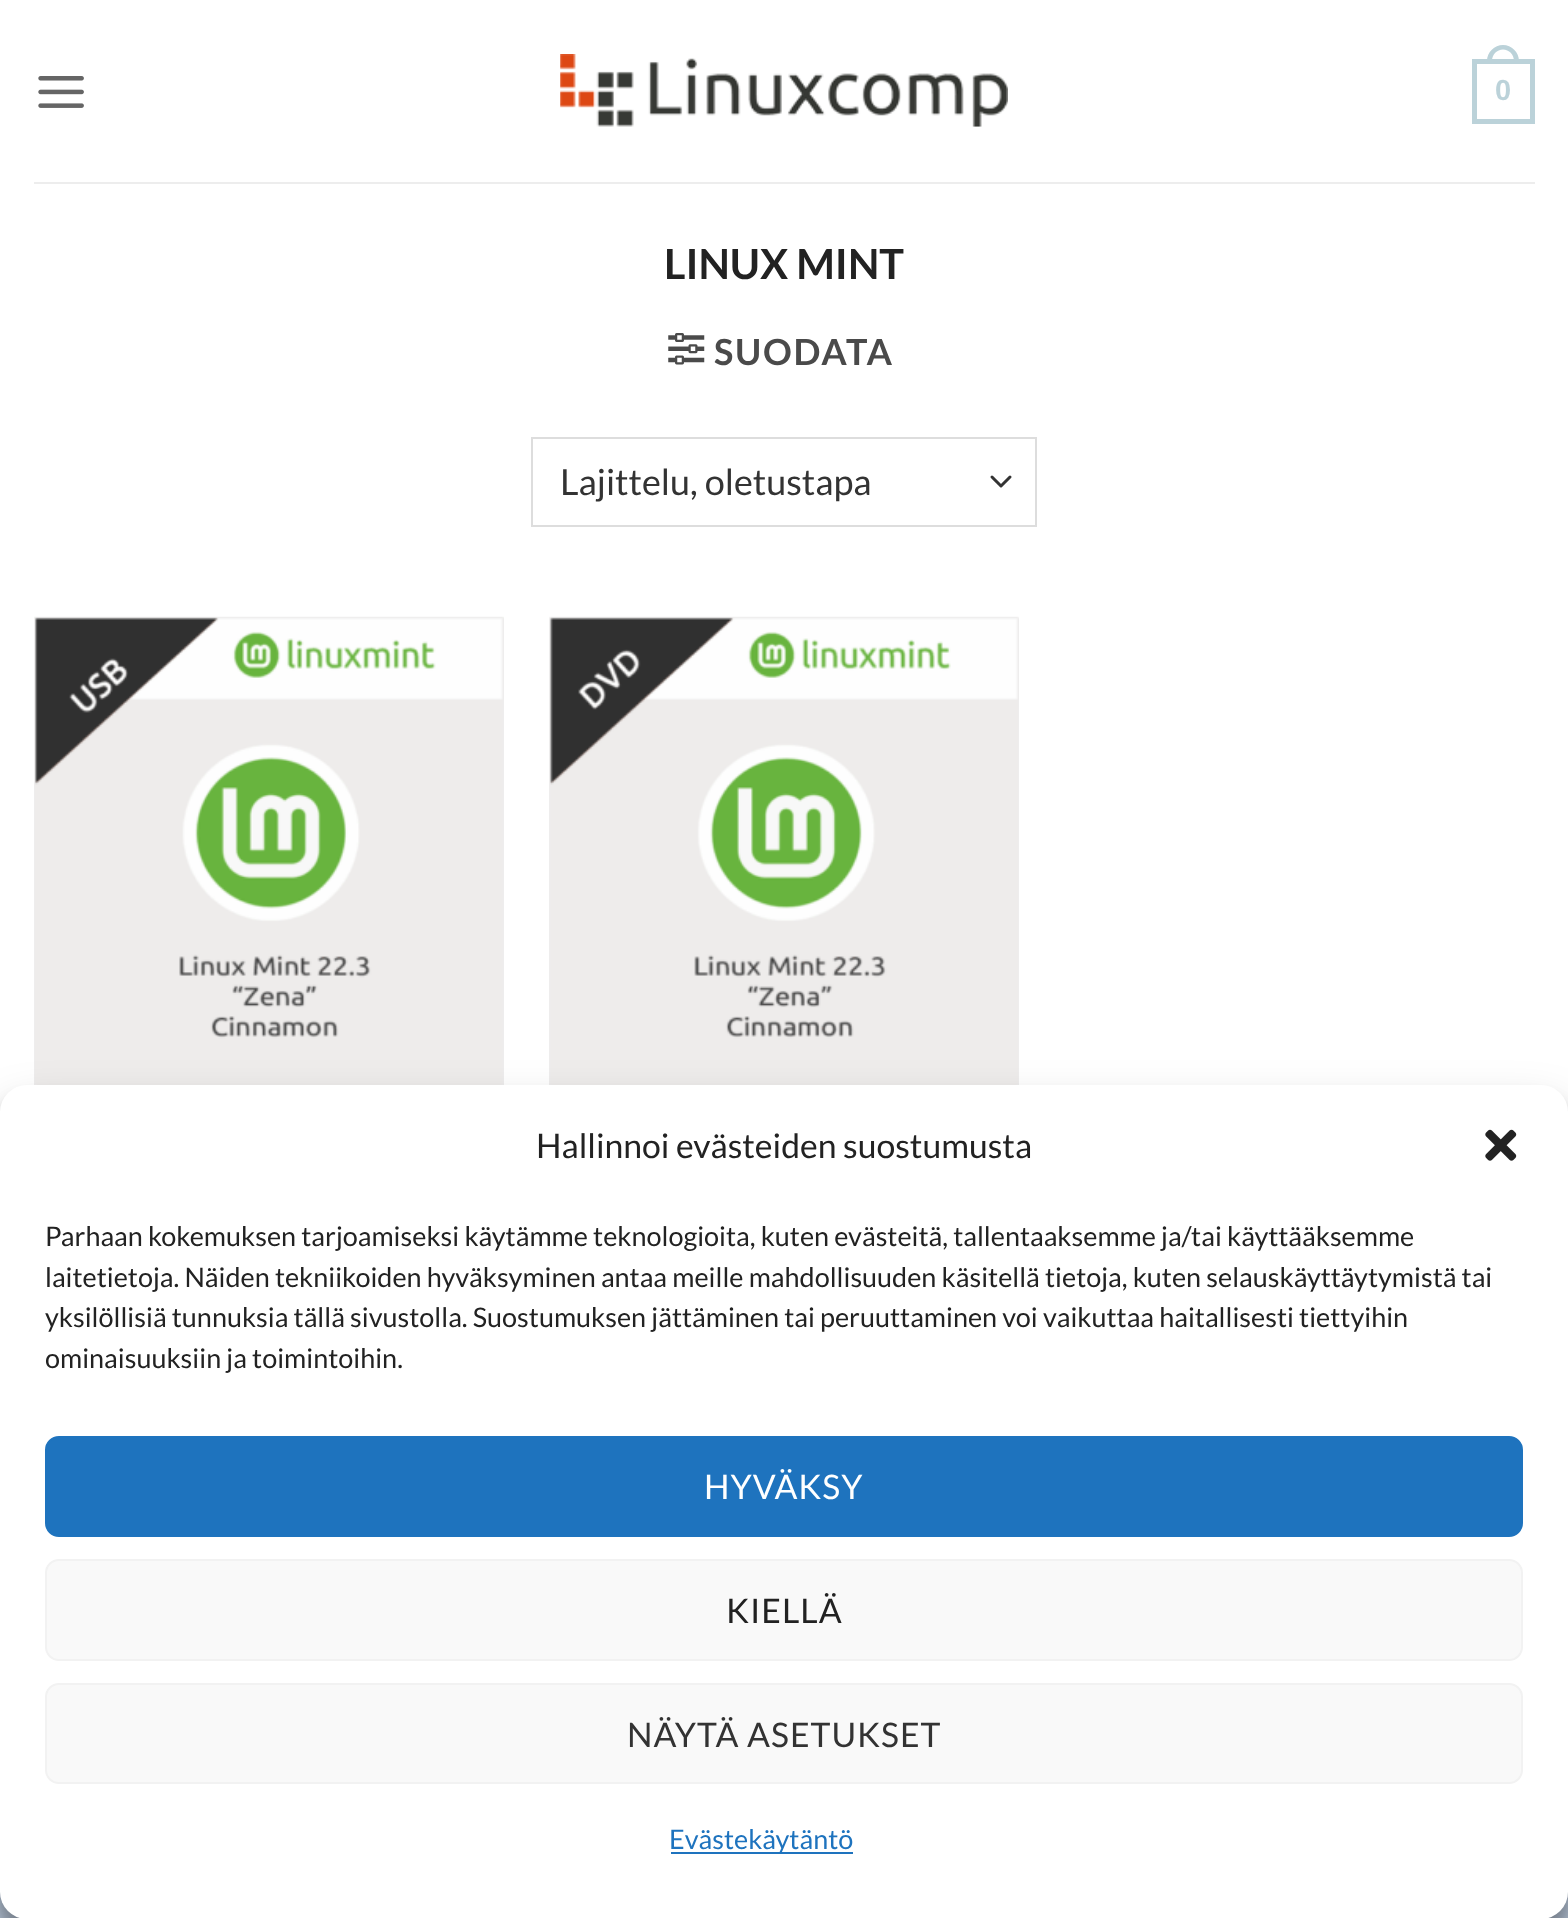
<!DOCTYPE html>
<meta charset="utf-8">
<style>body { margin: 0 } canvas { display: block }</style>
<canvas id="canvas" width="1568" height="1918"></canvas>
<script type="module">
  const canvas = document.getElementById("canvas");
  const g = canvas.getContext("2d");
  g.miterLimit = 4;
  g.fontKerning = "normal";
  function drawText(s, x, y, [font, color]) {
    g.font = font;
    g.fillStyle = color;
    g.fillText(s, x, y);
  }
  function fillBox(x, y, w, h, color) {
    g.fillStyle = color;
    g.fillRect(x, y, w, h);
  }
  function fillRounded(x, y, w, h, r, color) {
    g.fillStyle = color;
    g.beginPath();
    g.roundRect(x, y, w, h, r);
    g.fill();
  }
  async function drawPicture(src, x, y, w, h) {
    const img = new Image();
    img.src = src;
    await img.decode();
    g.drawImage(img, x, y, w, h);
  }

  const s1 = ["bold 29px Liberation Sans", "#BBD2D9"];
  const s2 = ["bold 41.5px Lato", "#222222"];
  const s3 = ["bold 36px Lato", "#4A4A4A"];
  const s4 = ["36px Lato", "#333333"];
  const s5 = ["33.75px Lato", "#222222"];
  const s6 = ["27px Lato", "#222222"];
  const s7 = ["33.75px Lato", "#FFFFFF"];
  const s8 = ["33.75px Lato", "#333333"];
  const s9 = ["27px Lato", "#1E73BE"];

  fillBox(0, 0, 1568, 1918, "#B4C2D4");
  fillBox(0, 0, 1568, 1112, "#FFFFFF");
  await drawPicture("pic1.png", 38, 76, 46, 32);
  await drawPicture("pic2.png", 560, 54, 448, 73);
  g.strokeStyle = "#BBD2D9";
  g.lineWidth = 5;
  g.strokeRect(1474.5, 61.5, 58, 60);
  g.fillStyle = "#BBD2D9";
  g.beginPath();
  g.moveTo(1503, 45);
  g.bezierCurveTo(1511.5, 45, 1519, 52, 1519, 61);
  g.lineTo(1519, 63);
  g.lineTo(1487, 63);
  g.lineTo(1487, 61);
  g.bezierCurveTo(1487, 52, 1494.5, 45, 1503, 45);
  g.closePath();
  g.moveTo(1503, 49.5);
  g.bezierCurveTo(1509, 49.5, 1514, 54.5, 1514, 61);
  g.lineTo(1514, 63);
  g.lineTo(1492, 63);
  g.lineTo(1492, 61);
  g.bezierCurveTo(1492, 54.5, 1497, 49.5, 1503, 49.5);
  g.closePath();
  g.fill("evenodd");
  drawText("0", 1495, 100, s1);
  fillBox(34, 182, 1501, 2, "#EDEDED");
  drawText("LINUX MINT", 664, 279, s2);
  await drawPicture("pic3.png", 668, 333, 37, 32);
  g.letterSpacing = "1.75px";
  drawText("SUODATA", 714, 365, s3);
  g.beginPath();
  g.moveTo(992, 477);
  g.lineTo(1001, 486);
  g.lineTo(1010, 477);
  g.strokeStyle = "#333333";
  g.lineWidth = 3;
  g.lineCap = "round";
  g.lineJoin = "round";
  g.stroke();
  g.strokeStyle = "#DDDDDD";
  g.lineWidth = 2;
  g.lineJoin = "miter";
  g.strokeRect(532, 438, 504, 88);
  g.letterSpacing = "0px";
  drawText("Lajittelu, oletustapa", 560, 495, s4);
  await drawPicture("pic4.png", 34, 616, 470, 469);
  await drawPicture("pic5.png", 549, 616, 470, 469);
  g.fillStyle = "rgba(0, 0, 0, 0.23)";
  g.filter = "blur(7px)";
  g.beginPath();
  g.roundRect(0, 1098, 1568, 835, 27);
  g.fill();
  g.filter = "none";
  g.fillStyle = "rgba(0, 0, 0, 0.19)";
  g.filter = "blur(22.5px)";
  g.beginPath();
  g.roundRect(0, 1107, 1568, 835, 27);
  g.fill();
  g.filter = "none";
  g.fillStyle = "#808080";
  g.filter = "blur(5.5px)";
  g.beginPath();
  g.roundRect(1411, 1753, 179, 135, 5);
  g.fill();
  g.filter = "none";
  fillRounded(0, 1085, 1568, 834, 27, "#FFFFFF");
  drawText("Hallinnoi evästeiden suostumusta", 536, 1158, s5);
  await drawPicture("pic6.png", 1485, 1129, 32, 32);
  drawText("Parhaan kokemuksen tarjoamiseksi käytämme teknologioita, kuten evästeitä, tallentaaksemme ja/tai käyttääksemme", 45, 1246, s6);
  drawText("laitetietoja. Näiden tekniikoiden hyväksyminen antaa meille mahdollisuuden käsitellä tietoja, kuten selauskäyttäytymistä tai", 45, 1287, s6);
  drawText("yksilöllisiä tunnuksia tällä sivustolla. Suostumuksen jättäminen tai peruuttaminen voi vaikuttaa haitallisesti tiettyihin", 45, 1327, s6);
  drawText("ominaisuuksiin ja toimintoihin.", 45, 1368, s6);
  g.fillStyle = "#1E73BE";
  g.beginPath();
  g.roundRect(46, 1437, 1476, 99, 13);
  g.fill();
  g.strokeStyle = "#1E73BE";
  g.stroke();
  g.letterSpacing = "1px";
  drawText("HYVÄKSY", 704, 1499, s7);
  g.fillStyle = "#F9F9F9";
  g.beginPath();
  g.roundRect(46, 1560, 1476, 100, 13);
  g.fill();
  g.strokeStyle = "#F2F2F2";
  g.stroke();
  drawText("KIELLÄ", 726, 1623, s5);
  g.fillStyle = "#F9F9F9";
  g.beginPath();
  g.roundRect(46, 1684, 1476, 99, 13);
  g.fill();
  g.stroke();
  drawText("NÄYTÄ ASETUKSET", 627, 1747, s8);
  fillBox(671, 1852, 182, 2, "#1E73BE");
  g.letterSpacing = "0px";
  drawText("Evästekäytäntö", 669, 1849, s9);
</script>
